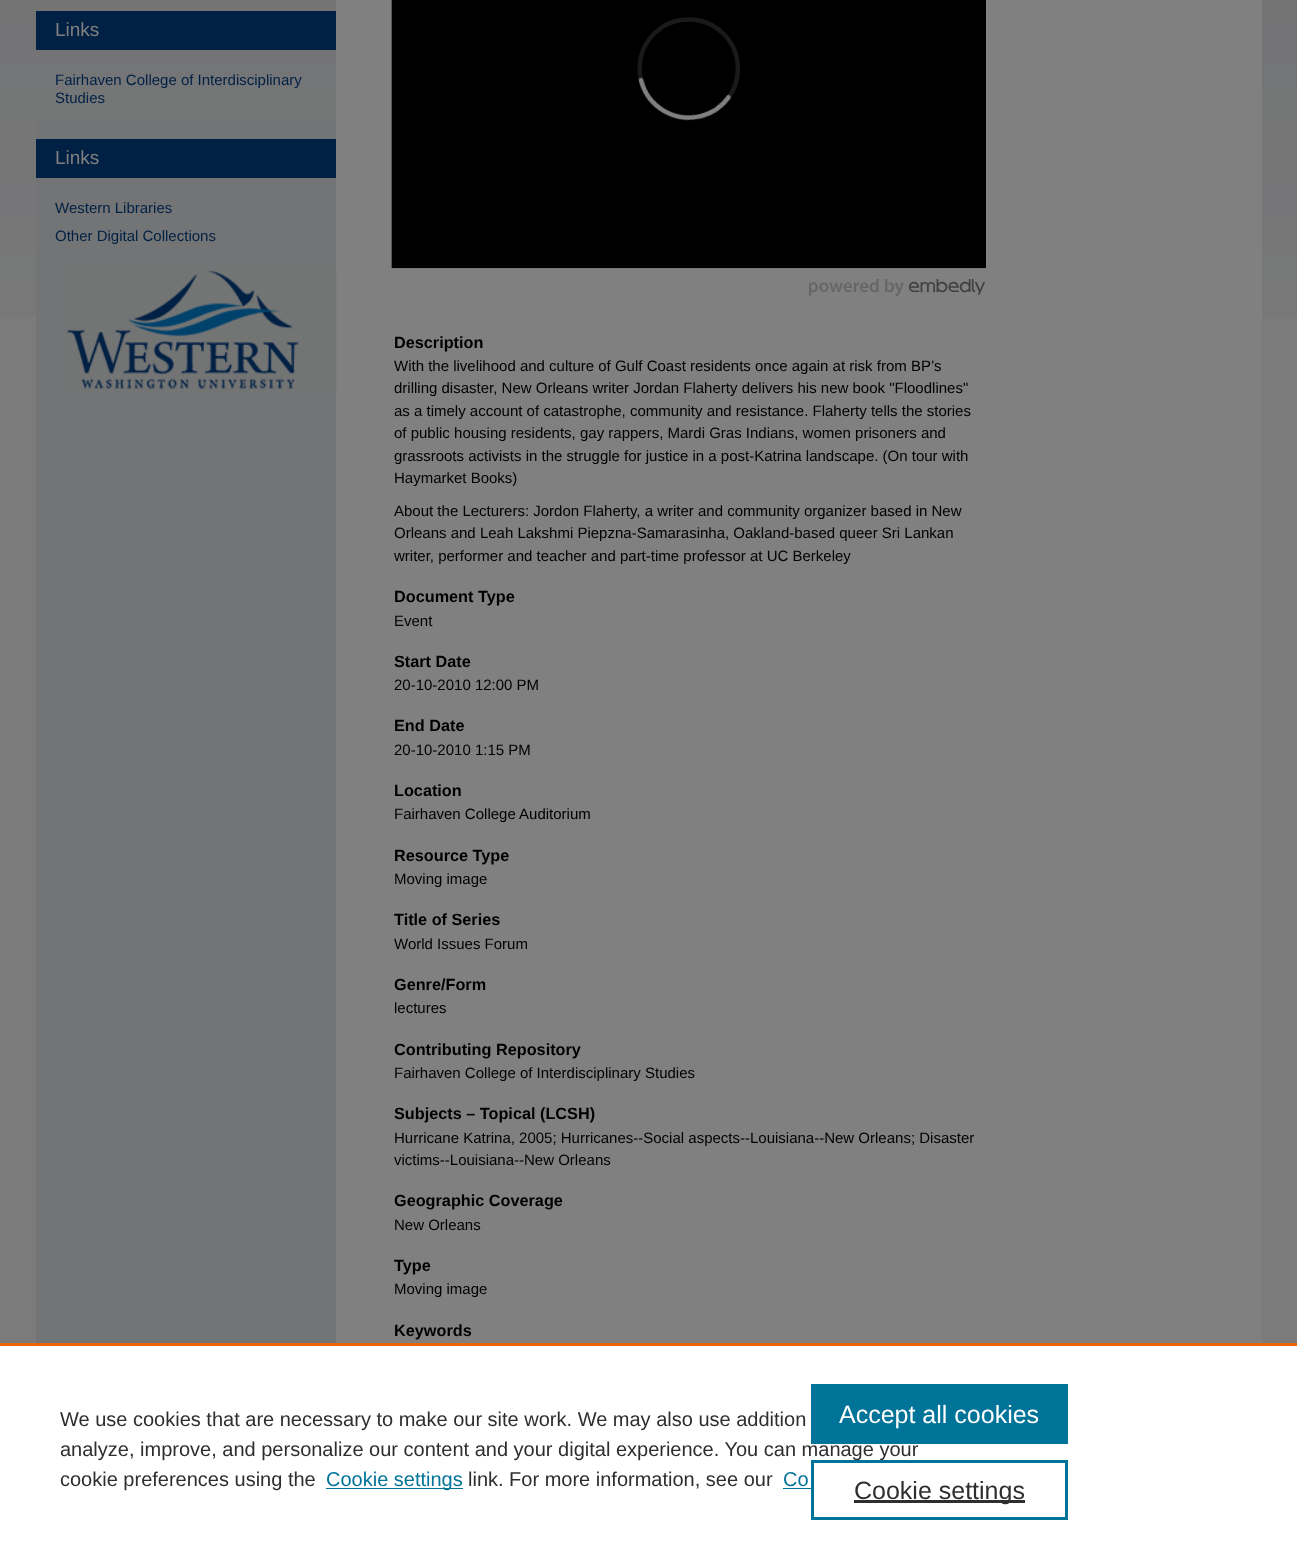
<!DOCTYPE html>
<meta charset="utf-8">
<style>body { margin: 0 } canvas { display: block }</style>
<canvas id="canvas" width="1297" height="1554"></canvas>
<script type="module">
  const canvas = document.getElementById("canvas");
  const g = canvas.getContext("2d");
  g.miterLimit = 4;
  g.fontKerning = "normal";
  function drawText(s, x, y, [font, color]) {
    g.font = font;
    g.fillStyle = color;
    g.fillText(s, x, y);
  }
  function fillBox(x, y, w, h, color) {
    g.fillStyle = color;
    g.fillRect(x, y, w, h);
  }
  async function drawPicture(src, x, y, w, h) {
    const img = new Image();
    img.src = src;
    await img.decode();
    g.drawImage(img, x, y, w, h);
  }

  const s1 = ["19px Liberation Sans", "#808080"];
  const s2 = ["15px Liberation Sans", "#002044"];
  const s3 = ["bold 16.25px Liberation Sans", "#000000"];
  const s4 = ["15px Liberation Sans", "#000000"];
  const s5 = ["20px Liberation Sans", "#2E2E2E"];
  const s6 = ["20px Liberation Sans", "#007398"];
  const s7 = ["25px Liberation Sans", "#FFFFFF"];
  const s8 = ["25px Liberation Sans", "#2E2E2E"];

  fillBox(0, 0, 1297, 1554, "#7B7B7B");
  await drawPicture("pic1.png", 0, 0, 1297, 317);
  fillBox(36, 120, 300, 1223, "#737475");
  fillBox(336, 0, 926, 1343, "#808080");
  fillBox(36, 11, 300, 39, "#002044");
  drawText("Links", 55, 36, s1);
  drawText("Fairhaven College of Interdisciplinary", 55, 85, s2);
  drawText("Studies", 55, 103, s2);
  fillBox(36, 139, 300, 39, "#002044");
  drawText("Links", 55, 164, s1);
  drawText("Western Libraries", 55, 213, s2);
  drawText("Other Digital Collections", 55, 241, s2);
  await drawPicture("pic2.png", 67, 268, 270, 124);
  await drawPicture("pic3.png", 391, 0, 595, 296);
  drawText("Description", 394, 348, s3);
  drawText("With the livelihood and culture of Gulf Coast residents once again at risk from BP’s", 394, 371, s4);
  drawText("drilling disaster, New Orleans writer Jordan Flaherty delivers his new book \"Floodlines\"", 394, 393, s4);
  drawText("as a timely account of catastrophe, community and resistance. Flaherty tells the stories", 394, 416, s4);
  drawText("of public housing residents, gay rappers, Mardi Gras Indians, women prisoners and", 394, 438, s4);
  drawText("grassroots activists in the struggle for justice in a post-Katrina landscape. (On tour with", 394, 461, s4);
  drawText("Haymarket Books)", 394, 483, s4);
  drawText("About the Lecturers: Jordon Flaherty, a writer and community organizer based in New", 394, 516, s4);
  drawText("Orleans and Leah Lakshmi Piepzna-Samarasinha, Oakland-based queer Sri Lankan", 394, 538, s4);
  drawText("writer, performer and teacher and part-time professor at UC Berkeley", 394, 561, s4);
  drawText("Document Type", 394, 602, s3);
  drawText("Event", 394, 626, s4);
  drawText("Start Date", 394, 667, s3);
  drawText("20-10-2010 12:00 PM", 394, 690, s4);
  drawText("End Date", 394, 731, s3);
  drawText("20-10-2010 1:15 PM", 394, 755, s4);
  drawText("Location", 394, 796, s3);
  drawText("Fairhaven College Auditorium", 394, 819, s4);
  drawText("Resource Type", 394, 861, s3);
  drawText("Moving image", 394, 884, s4);
  drawText("Title of Series", 394, 925, s3);
  drawText("World Issues Forum", 394, 949, s4);
  drawText("Genre/Form", 394, 990, s3);
  drawText("lectures", 394, 1013, s4);
  drawText("Contributing Repository", 394, 1055, s3);
  drawText("Fairhaven College of Interdisciplinary Studies", 394, 1078, s4);
  drawText("Subjects – Topical (LCSH)", 394, 1119, s3);
  drawText("Hurricane Katrina, 2005; Hurricanes--Social aspects--Louisiana--New Orleans; Disaster", 394, 1143, s4);
  drawText("victims--Louisiana--New Orleans", 394, 1165, s4);
  drawText("Geographic Coverage", 394, 1206, s3);
  drawText("New Orleans", 394, 1230, s4);
  drawText("Type", 394, 1271, s3);
  drawText("Moving image", 394, 1294, s4);
  drawText("Keywords", 394, 1336, s3);
  fillBox(0, 1346, 1297, 208, "#FFFFFF");
  fillBox(0, 1343, 1297, 3, "#EB6500");
  drawText("We use cookies that are necessary to make our site work. We may also use addition", 60, 1426, s5);
  drawText("analyze, improve, and personalize our content and your digital experience. You can manage your", 60, 1456, s5);
  drawText("cookie preferences using the", 60, 1486, s5);
  fillBox(326, 1488, 137, 1, "#007398");
  drawText("Cookie settings", 326, 1486, s6);
  drawText("link. For more information, see our", 468, 1486, s5);
  drawText("Co", 783, 1486, s6);
  fillBox(783, 1488, 28, 1, "#007398");
  fillBox(811, 1384, 257, 60, "#007398");
  drawText("Accept all cookies", 839, 1423, s7);
  g.strokeStyle = "#007398";
  g.lineWidth = 3;
  g.strokeRect(812.5, 1461.5, 254, 57);
  fillBox(854, 1500, 171, 3, "#2E2E2E");
  drawText("Cookie settings", 854, 1499, s8);
</script>
